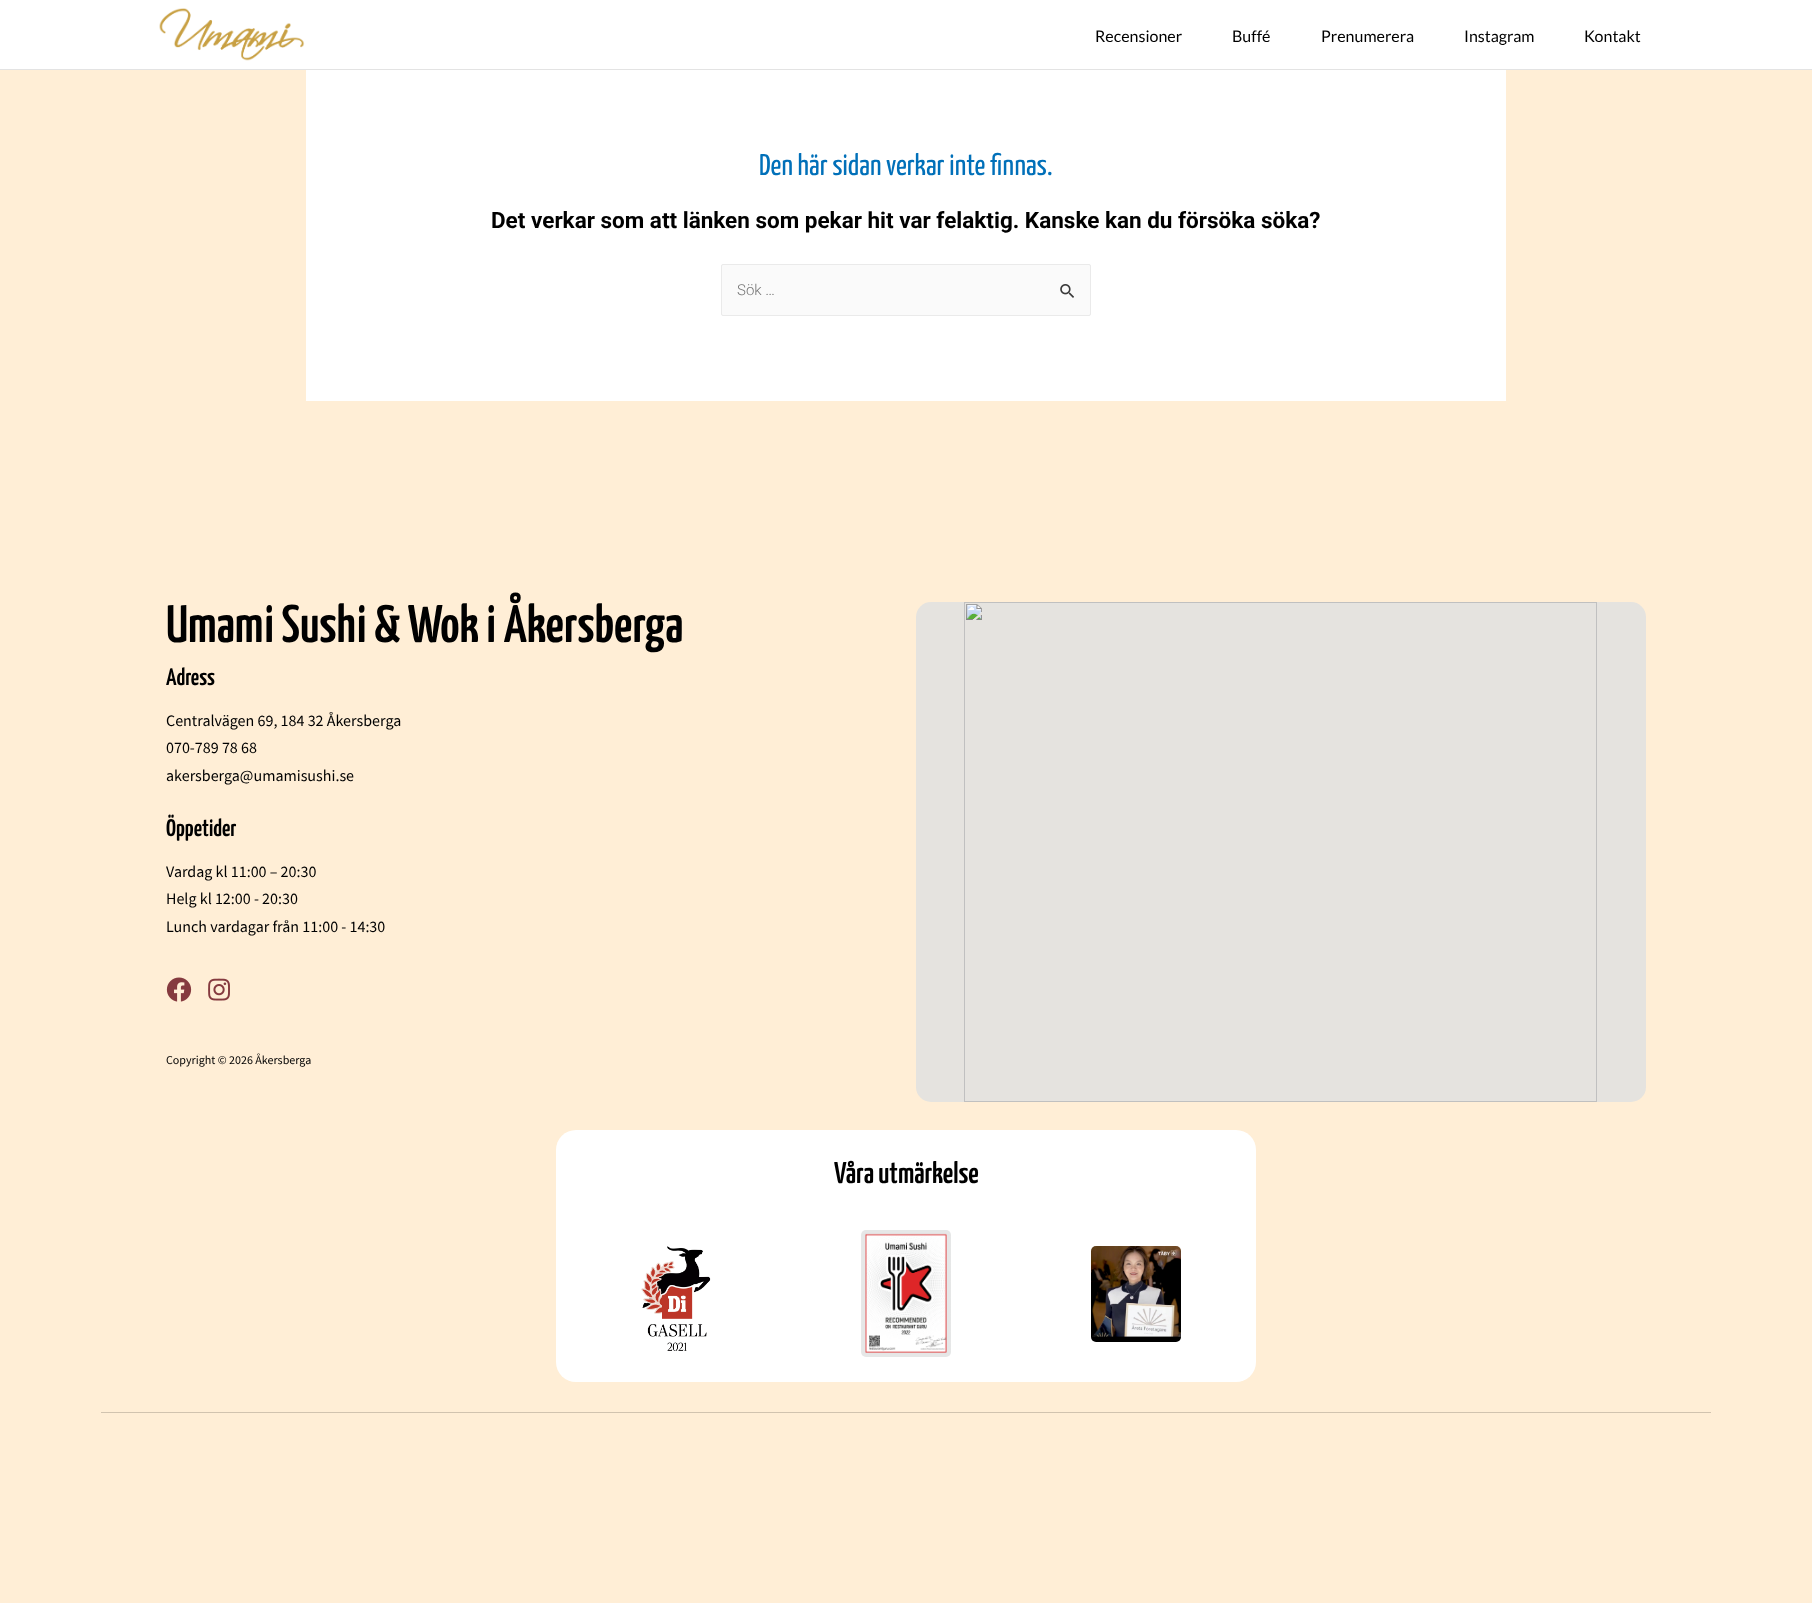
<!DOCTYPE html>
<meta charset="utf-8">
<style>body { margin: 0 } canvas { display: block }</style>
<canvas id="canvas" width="1812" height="1603"></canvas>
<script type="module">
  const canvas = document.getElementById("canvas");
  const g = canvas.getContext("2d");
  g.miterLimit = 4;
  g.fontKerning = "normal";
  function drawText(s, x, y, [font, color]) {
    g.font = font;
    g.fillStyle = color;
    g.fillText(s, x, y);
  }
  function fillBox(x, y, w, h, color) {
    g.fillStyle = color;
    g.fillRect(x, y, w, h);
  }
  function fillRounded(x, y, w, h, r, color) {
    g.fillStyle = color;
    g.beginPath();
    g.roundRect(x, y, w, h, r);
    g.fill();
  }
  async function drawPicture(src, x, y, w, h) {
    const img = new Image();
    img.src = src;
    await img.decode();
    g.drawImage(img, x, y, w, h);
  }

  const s1 = ["16px Lato", "#000000"];
  const s2 = ["30px Yanone Kaffeesatz", "#0170B9"];
  const s3 = ["bold 22.5px Roboto", "#000000"];
  const s4 = ["300 15px Roboto", "#757575"];
  const s5 = ["600 52.75px Yanone Kaffeesatz", "#000000"];
  const s6 = ["600 24px Yanone Kaffeesatz", "#000000"];
  const s7 = ["16px Source Sans Pro", "#000000"];
  const s8 = ["12px Source Sans Pro", "#000000"];
  const s9 = ["600 30px Yanone Kaffeesatz", "#000000"];

  fillBox(0, 0, 1812, 1603, "#FFEED6");
  fillBox(0, 0, 1812, 69, "#FFFFFF");
  fillBox(0, 69, 1812, 1, "#E3E3E3");
  await drawPicture("pic1.png", 159, 8, 146, 53);
  drawText("Recensioner", 1095, 42, s1);
  drawText("Buffé", 1232, 42, s1);
  drawText("Prenumerera", 1321, 42, s1);
  drawText("Instagram", 1464, 42, s1);
  drawText("Kontakt", 1584, 42, s1);
  fillBox(306, 70, 1200, 331, "#FFFFFF");
  drawText("Den här sidan verkar inte finnas.", 759, 175, s2);
  drawText("Det verkar som att länken som pekar hit var felaktig. Kanske kan du försöka söka?", 491, 228, s3);
  g.fillStyle = "#FAFAFA";
  g.beginPath();
  g.roundRect(721.5, 264.5, 369, 51, 1.5);
  g.fill();
  g.strokeStyle = "#EAEAEA";
  g.stroke();
  drawText("Sök …", 737, 295, s4);
  await drawPicture("pic2.png", 1060, 284, 14, 14);
  drawText("Umami Sushi & Wok i Åkersberga", 166, 642, s5);
  drawText("Adress", 166, 685, s6);
  drawText("Centralvägen 69, 184 32 Åkersberga", 166, 726, s7);
  drawText("070-789 78 68", 166, 753, s7);
  drawText("akersberga@umamisushi.se", 166, 781, s7);
  drawText("Öppetider", 166, 836, s6);
  drawText("Vardag kl 11:00 – 20:30", 166, 877, s7);
  drawText("Helg kl 12:00 - 20:30", 166, 904, s7);
  drawText("Lunch vardagar från 11:00 - 14:30", 166, 932, s7);
  await drawPicture("pic3.png", 166, 977, 26, 25);
  await drawPicture("pic4.png", 208, 978, 22, 23);
  drawText("Copyright © 2026 Åkersberga", 166, 1064, s8);
  await drawPicture("pic5.png", 916, 602, 730, 500);
  fillRounded(556, 1130, 700, 252, 20, "#FFFFFF");
  drawText("Våra utmärkelse", 834, 1183, s9);
  await drawPicture("pic6.png", 641, 1246, 70, 105);
  await drawPicture("pic7.png", 861, 1230, 90, 127);
  await drawPicture("pic8.png", 1091, 1246, 90, 96);
  fillBox(101, 1412, 1610, 1, "#D1C3AF");
</script>
